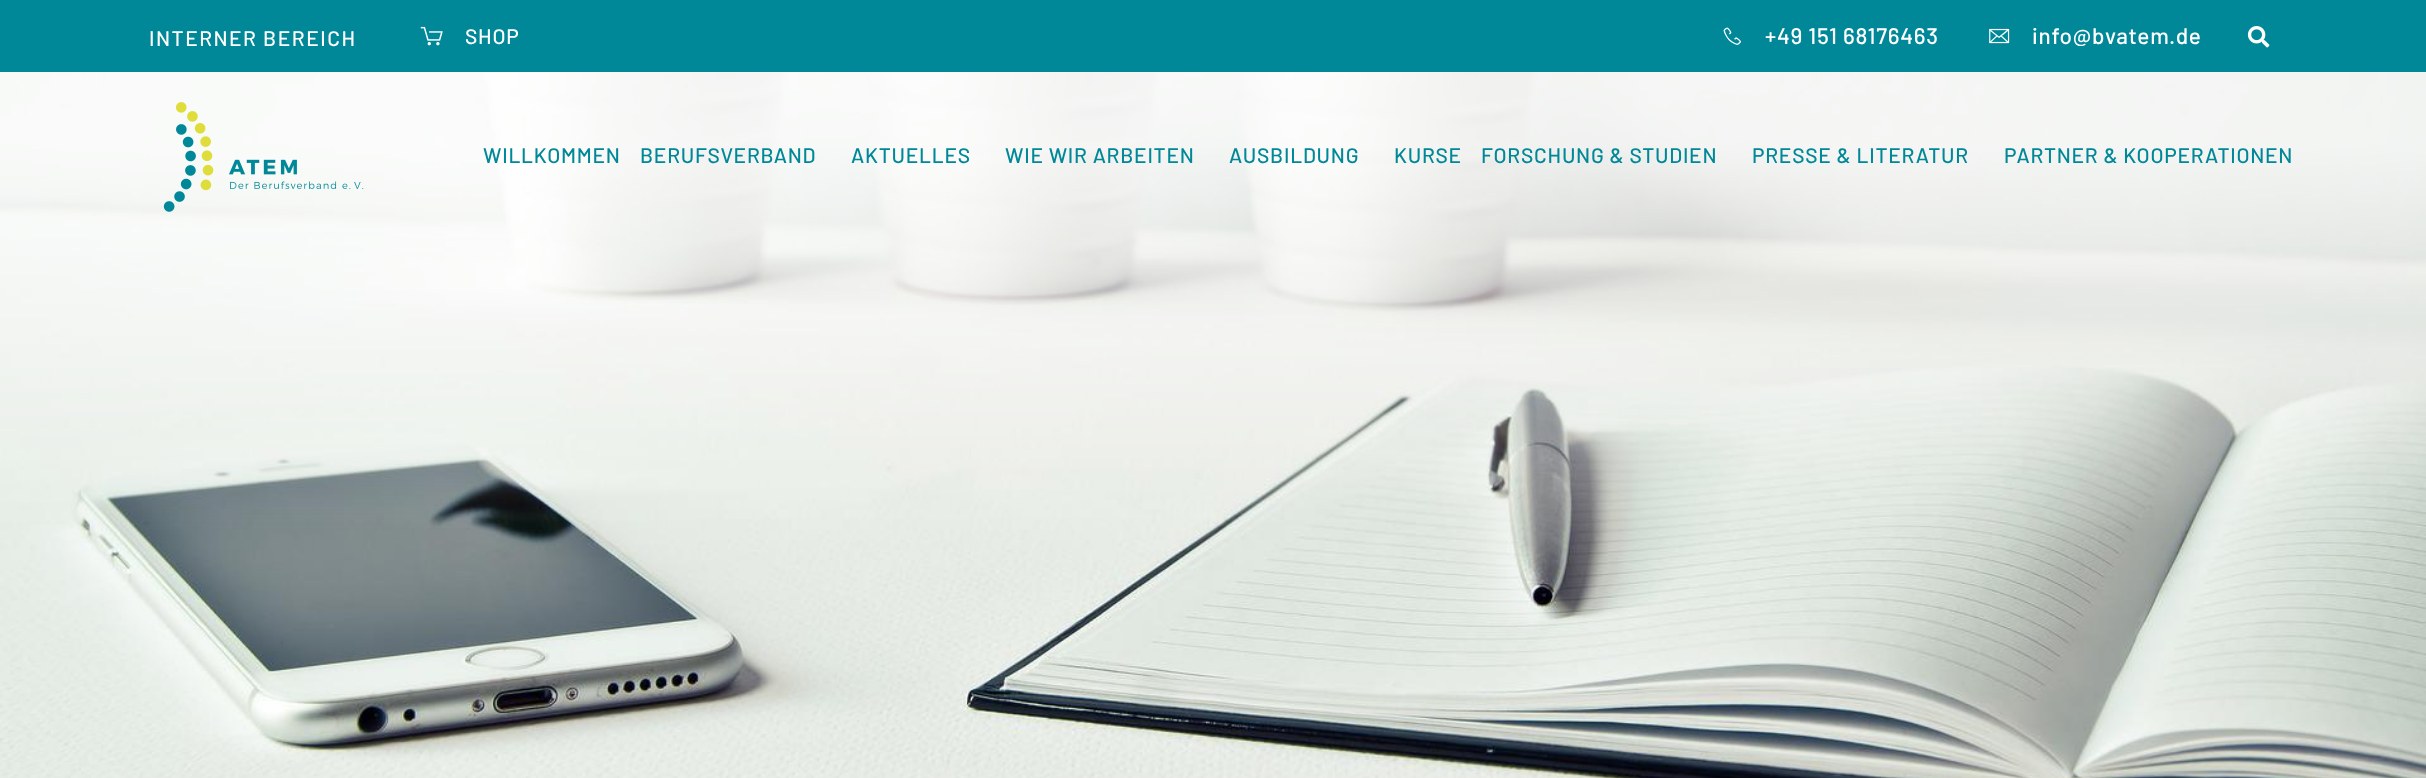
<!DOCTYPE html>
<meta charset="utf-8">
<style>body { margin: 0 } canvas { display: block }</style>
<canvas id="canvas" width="2426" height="778"></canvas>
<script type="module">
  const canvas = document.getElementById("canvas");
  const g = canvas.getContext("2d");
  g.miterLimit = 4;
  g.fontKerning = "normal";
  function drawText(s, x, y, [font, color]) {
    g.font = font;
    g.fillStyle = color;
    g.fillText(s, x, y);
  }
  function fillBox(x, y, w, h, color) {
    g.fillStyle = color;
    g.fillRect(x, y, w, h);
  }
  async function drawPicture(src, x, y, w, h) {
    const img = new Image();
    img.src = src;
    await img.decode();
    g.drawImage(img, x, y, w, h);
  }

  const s1 = ["500 21px Barlow", "#FFFFFF"];
  const s2 = ["500 22.5px Barlow", "#FFFFFF"];
  const s3 = ["500 21px Barlow", "#008899"];

  fillBox(0, 0, 2426, 778, "#008899");
  g.letterSpacing = "1.5px";
  drawText("INTERNER BEREICH", 149, 46, s1);
  await drawPicture("pic1.png", 420, 26, 23, 20);
  g.letterSpacing = "0.75px";
  drawText("SHOP", 465, 44, s1);
  await drawPicture("pic2.png", 1723, 27, 18, 18);
  drawText("+49 151 68176463", 1765, 44, s2);
  await drawPicture("pic3.png", 1989, 28, 21, 16);
  drawText("info@bvatem.de", 2032, 44, s2);
  await drawPicture("pic4.png", 2247, 26, 23, 22);
  await drawPicture("pic6.png", 0, 72, 2426, 706);
  await drawPicture("pic5.png", 163, 102, 201, 110);
  drawText("WILLKOMMEN", 483, 163, s3);
  drawText("BERUFSVERBAND", 640, 163, s3);
  drawText("AKTUELLES", 851, 163, s3);
  drawText("WIE WIR ARBEITEN", 1005, 163, s3);
  drawText("AUSBILDUNG", 1229, 163, s3);
  drawText("KURSE", 1394, 163, s3);
  drawText("FORSCHUNG & STUDIEN", 1481, 163, s3);
  drawText("PRESSE & LITERATUR", 1752, 163, s3);
  drawText("PARTNER & KOOPERATIONEN", 2004, 163, s3);
</script>
